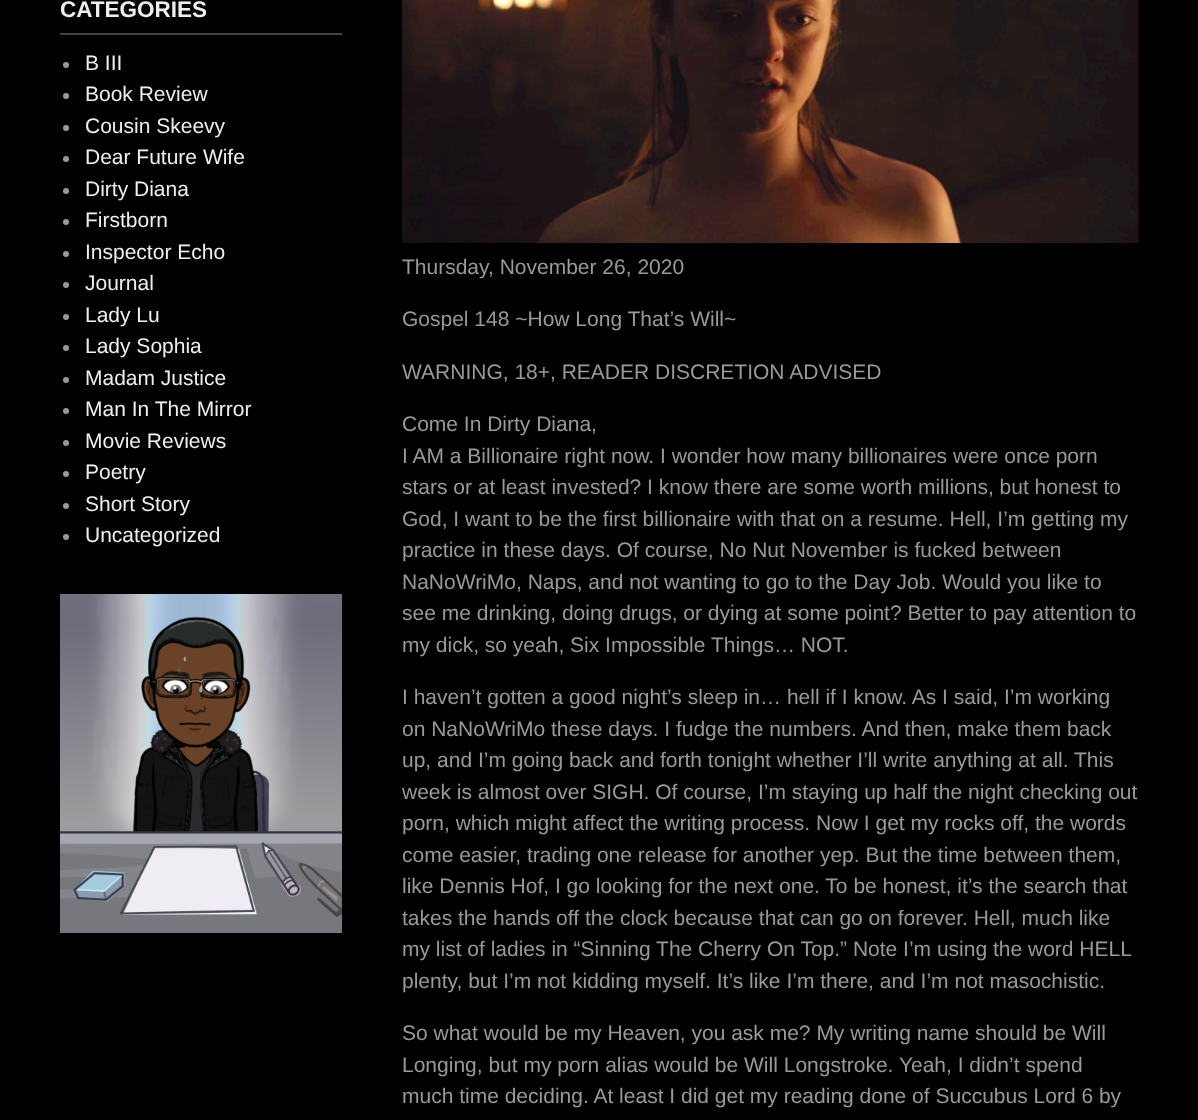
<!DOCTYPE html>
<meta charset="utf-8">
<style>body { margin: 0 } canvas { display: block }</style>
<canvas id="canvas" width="1198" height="1120"></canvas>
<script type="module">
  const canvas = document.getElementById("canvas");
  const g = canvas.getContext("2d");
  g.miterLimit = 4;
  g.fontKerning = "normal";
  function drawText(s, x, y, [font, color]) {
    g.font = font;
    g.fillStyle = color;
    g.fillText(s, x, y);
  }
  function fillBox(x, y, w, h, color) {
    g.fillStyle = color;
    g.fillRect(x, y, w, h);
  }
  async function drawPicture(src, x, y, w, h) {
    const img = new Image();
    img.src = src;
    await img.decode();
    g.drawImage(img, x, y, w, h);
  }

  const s1 = ["bold 22.5px Liberation Sans", "#EEEEEE"];
  const s2 = ["21px Liberation Sans", "#EEEEEE"];
  const s3 = ["21px Liberation Sans", "#999999"];

  fillBox(0, 0, 1198, 1120, "#000000");
  fillBox(60, 33, 282, 2, "#444444");
  drawText("CATEGORIES", 60, 17, s1);
  g.fillStyle = "#999999";
  g.beginPath();
  g.arc(66, 65, 3, 0, Math.PI * 2);
  g.fill();
  drawText("B III", 85, 70, s2);
  g.fillStyle = "#999999";
  g.beginPath();
  g.arc(66, 96, 3, 0, Math.PI * 2);
  g.fill();
  drawText("Book Review", 85, 101, s2);
  g.fillStyle = "#999999";
  g.beginPath();
  g.arc(66, 128, 3, 0, Math.PI * 2);
  g.fill();
  drawText("Cousin Skeevy", 85, 133, s2);
  g.fillStyle = "#999999";
  g.beginPath();
  g.arc(66, 159, 3, 0, Math.PI * 2);
  g.fill();
  drawText("Dear Future Wife", 85, 164, s2);
  g.fillStyle = "#999999";
  g.beginPath();
  g.arc(66, 191, 3, 0, Math.PI * 2);
  g.fill();
  drawText("Dirty Diana", 85, 196, s2);
  g.fillStyle = "#999999";
  g.beginPath();
  g.arc(66, 222, 3, 0, Math.PI * 2);
  g.fill();
  drawText("Firstborn", 85, 227, s2);
  g.fillStyle = "#999999";
  g.beginPath();
  g.arc(66, 254, 3, 0, Math.PI * 2);
  g.fill();
  drawText("Inspector Echo", 85, 259, s2);
  g.fillStyle = "#999999";
  g.beginPath();
  g.arc(66, 285, 3, 0, Math.PI * 2);
  g.fill();
  drawText("Journal", 85, 290, s2);
  g.fillStyle = "#999999";
  g.beginPath();
  g.arc(66, 317, 3, 0, Math.PI * 2);
  g.fill();
  drawText("Lady Lu", 85, 322, s2);
  g.fillStyle = "#999999";
  g.beginPath();
  g.arc(66, 348, 3, 0, Math.PI * 2);
  g.fill();
  drawText("Lady Sophia", 85, 353, s2);
  g.fillStyle = "#999999";
  g.beginPath();
  g.arc(66, 380, 3, 0, Math.PI * 2);
  g.fill();
  drawText("Madam Justice", 85, 385, s2);
  g.fillStyle = "#999999";
  g.beginPath();
  g.arc(66, 411, 3, 0, Math.PI * 2);
  g.fill();
  drawText("Man In The Mirror", 85, 416, s2);
  g.fillStyle = "#999999";
  g.beginPath();
  g.arc(66, 443, 3, 0, Math.PI * 2);
  g.fill();
  drawText("Movie Reviews", 85, 448, s2);
  g.fillStyle = "#999999";
  g.beginPath();
  g.arc(66, 474, 3, 0, Math.PI * 2);
  g.fill();
  drawText("Poetry", 85, 479, s2);
  g.fillStyle = "#999999";
  g.beginPath();
  g.arc(66, 506, 3, 0, Math.PI * 2);
  g.fill();
  drawText("Short Story", 85, 511, s2);
  g.fillStyle = "#999999";
  g.beginPath();
  g.arc(66, 537, 3, 0, Math.PI * 2);
  g.fill();
  drawText("Uncategorized", 85, 542, s2);
  await drawPicture("pic1.png", 60, 594, 282, 339);
  await drawPicture("pic2.png", 402, 0, 737, 243);
  drawText("Thursday, November 26, 2020", 402, 274, s3);
  drawText("Gospel 148 ~How Long That’s Will~", 402, 326, s3);
  drawText("WARNING, 18+, READER DISCRETION ADVISED", 402, 379, s3);
  drawText("Come In Dirty Diana,", 402, 431, s3);
  drawText("I AM a Billionaire right now. I wonder how many billionaires were once porn", 402, 463, s3);
  drawText("stars or at least invested? I know there are some worth millions, but honest to", 402, 494, s3);
  drawText("God, I want to be the first billionaire with that on a resume. Hell, I’m getting my", 402, 526, s3);
  drawText("practice in these days. Of course, No Nut November is fucked between", 402, 557, s3);
  drawText("NaNoWriMo, Naps, and not wanting to go to the Day Job. Would you like to", 402, 589, s3);
  drawText("see me drinking, doing drugs, or dying at some point? Better to pay attention to", 402, 620, s3);
  drawText("my dick, so yeah, Six Impossible Things… NOT.", 402, 652, s3);
  drawText("I haven’t gotten a good night’s sleep in… hell if I know. As I said, I’m working", 402, 704, s3);
  drawText("on NaNoWriMo these days. I fudge the numbers. And then, make them back", 402, 736, s3);
  drawText("up, and I’m going back and forth tonight whether I’ll write anything at all. This", 402, 767, s3);
  drawText("week is almost over SIGH. Of course, I’m staying up half the night checking out", 402, 799, s3);
  drawText("porn, which might affect the writing process. Now I get my rocks off, the words", 402, 830, s3);
  drawText("come easier, trading one release for another yep. But the time between them,", 402, 862, s3);
  drawText("like Dennis Hof, I go looking for the next one. To be honest, it’s the search that", 402, 893, s3);
  drawText("takes the hands off the clock because that can go on forever. Hell, much like", 402, 925, s3);
  drawText("my list of ladies in “Sinning The Cherry On Top.” Note I’m using the word HELL", 402, 956, s3);
  drawText("plenty, but I’m not kidding myself. It’s like I’m there, and I’m not masochistic.", 402, 988, s3);
  drawText("So what would be my Heaven, you ask me? My writing name should be Will", 402, 1040, s3);
  drawText("Longing, but my porn alias would be Will Longstroke. Yeah, I didn’t spend", 402, 1072, s3);
  drawText("much time deciding. At least I did get my reading done of Succubus Lord 6 by", 402, 1103, s3);
</script>
